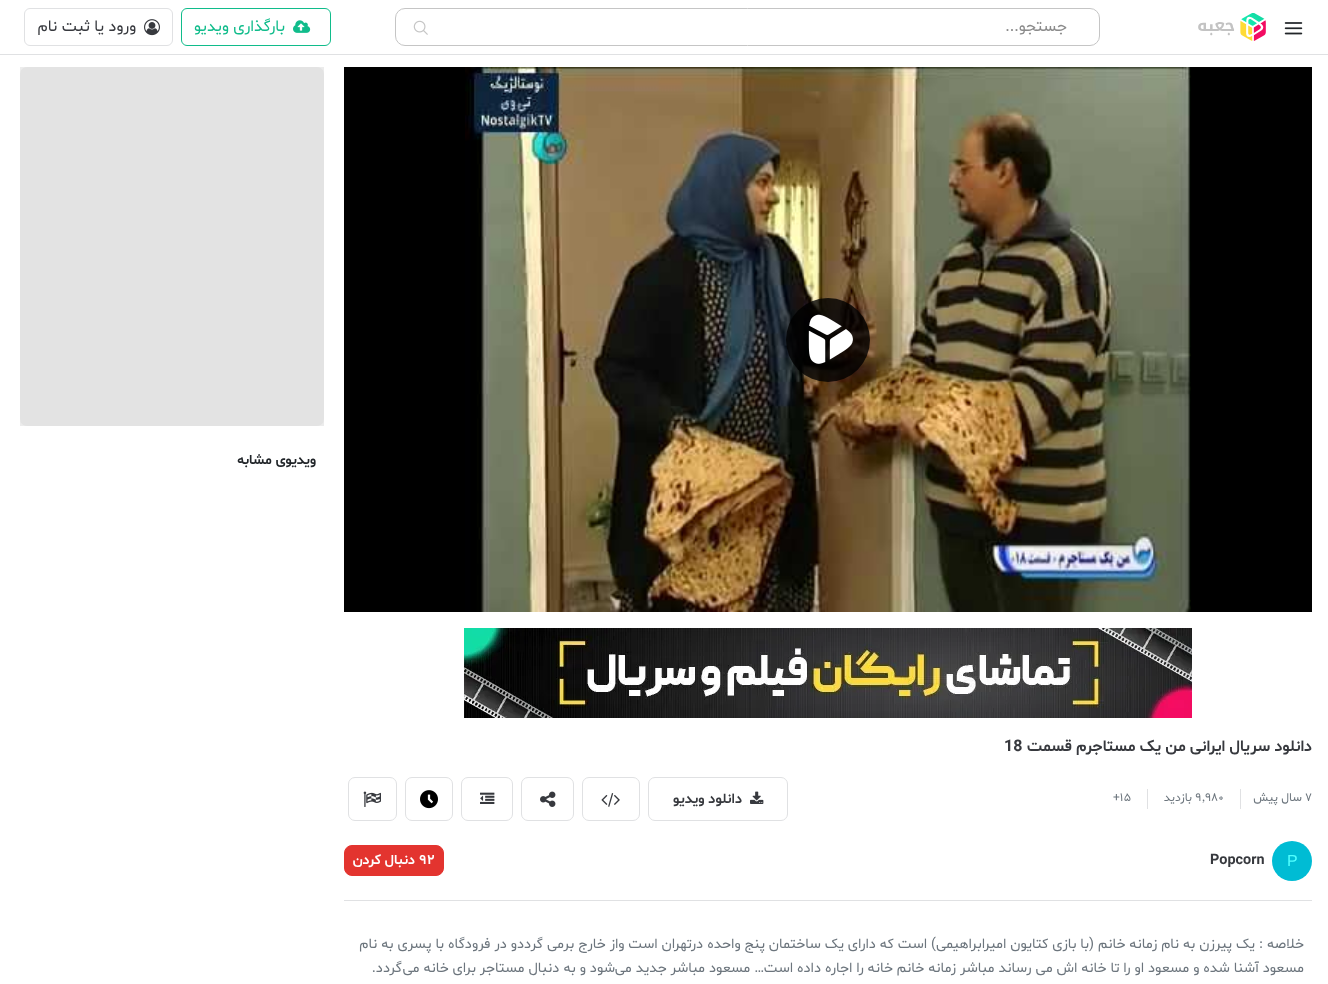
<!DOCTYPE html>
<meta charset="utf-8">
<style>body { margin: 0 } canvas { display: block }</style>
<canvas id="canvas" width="1328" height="984"></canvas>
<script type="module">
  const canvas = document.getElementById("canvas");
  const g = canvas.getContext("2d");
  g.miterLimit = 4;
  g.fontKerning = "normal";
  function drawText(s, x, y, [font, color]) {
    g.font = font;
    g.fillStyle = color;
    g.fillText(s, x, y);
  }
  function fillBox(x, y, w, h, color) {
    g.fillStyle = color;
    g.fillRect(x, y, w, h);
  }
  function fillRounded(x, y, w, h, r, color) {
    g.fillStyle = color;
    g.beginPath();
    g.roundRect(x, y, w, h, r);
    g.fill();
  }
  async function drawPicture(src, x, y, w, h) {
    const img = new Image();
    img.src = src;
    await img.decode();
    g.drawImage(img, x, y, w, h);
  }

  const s1 = ["16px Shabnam", "#8B8B8B"];
  const s2 = ["16px Shabnam", "#10BC8B"];
  const s3 = ["16px Shabnam", "#37393E"];
  const s4 = ["bold 14px Shabnam", "#212529"];
  const s5 = ["bold 16px Shabnam", "#37393E"];
  const s6 = ["12px Shabnam", "#6C757D"];
  const s7 = ["bold 14.4px Shabnam", "#37393E"];
  const s8 = ["16px Liberation Sans", "#50FFFF"];
  const s9 = ["bold 14px Shabnam", "#FFFFFF"];
  const s10 = ["14.4px Shabnam", "#6C757D"];

  fillBox(0, 0, 1328, 984, "#FFFFFF");
  fillBox(20, 67, 304, 359, "#ECECEC");
  fillBox(0, 54, 1328, 1, "#E0E1E3");
  await drawPicture("pic1.png", 1284, 22, 19, 13);
  await drawPicture("pic2.png", 1198, 13, 68, 28);
  await drawPicture("pic3.png", 413, 20, 15, 15);
  g.beginPath();
  g.roundRect(395.5, 8.5, 704, 37, 9.5);
  g.strokeStyle = "#C5C5C5";
  g.stroke();
  g.direction = "rtl";
  drawText("جستجو...", 1067, 31, s1);
  g.beginPath();
  g.roundRect(181.5, 8.5, 149, 37, 5.5);
  g.strokeStyle = "#10BC8B";
  g.stroke();
  await drawPicture("pic4.png", 293, 20, 18, 13);
  drawText("بارگذاری ویدیو", 285, 31, s2);
  g.beginPath();
  g.roundRect(24.5, 8.5, 148, 37, 5.5);
  g.strokeStyle = "#E0E1E3";
  g.stroke();
  await drawPicture("pic5.png", 144, 19, 16, 17);
  drawText("ورود یا ثبت نام", 136, 31, s3);
  fillBox(344, 67, 968, 545, "#000000");
  await drawPicture("pic6.png", 465, 67, 726, 545);
  g.fillStyle = "rgba(0, 0, 0, 0.8)";
  g.beginPath();
  g.arc(828, 340, 42, 0, Math.PI * 2);
  g.fill();
  await drawPicture("pic7.png", 808, 314, 45, 50);
  fillRounded(20, 67, 304, 359, 7, "#E3E3E3");
  drawText("ویدیوی مشابه", 316, 464, s4);
  await drawPicture("pic8.png", 464, 628, 728, 90);
  drawText("دانلود سریال ایرانی من یک مستاجرم قسمت", 1312, 751, s5);
  g.direction = "ltr";
  drawText("18", 1004, 751, s5);
  fillBox(1240, 789, 1, 20, "#E0E1E3");
  drawText("۷", 1305, 801, s6);
  g.direction = "rtl";
  drawText("سال پیش", 1302, 801, s6);
  g.direction = "ltr";
  drawText("۹٬۹۸۰", 1195, 801, s6);
  g.direction = "rtl";
  drawText("بازدید", 1192, 801, s6);
  fillBox(1147, 789, 1, 20, "#E0E1E3");
  g.direction = "ltr";
  drawText("+۱۵", 1113, 801, s6);
  g.beginPath();
  g.roundRect(648.5, 777.5, 139, 43, 6.5);
  g.stroke();
  await drawPicture("pic9.png", 750, 791, 14, 13);
  g.direction = "rtl";
  drawText("دانلود ویدیو", 742, 803, s7);
  g.beginPath();
  g.roundRect(582.5, 777.5, 57, 43, 6.5);
  g.stroke();
  await drawPicture("pic10.png", 601, 793, 19, 14);
  g.beginPath();
  g.roundRect(521.5, 777.5, 52, 43, 6.5);
  g.stroke();
  await drawPicture("pic11.png", 540, 791, 16, 16);
  g.beginPath();
  g.roundRect(461.5, 777.5, 51, 43, 6.5);
  g.stroke();
  await drawPicture("pic12.png", 480, 792, 15, 12);
  g.beginPath();
  g.roundRect(405.5, 777.5, 47, 43, 6.5);
  g.stroke();
  await drawPicture("pic13.png", 420, 790, 18, 19);
  g.beginPath();
  g.roundRect(348.5, 777.5, 48, 43, 6.5);
  g.stroke();
  await drawPicture("pic14.png", 363, 791, 18, 16);
  g.fillStyle = "#00BCD4";
  g.beginPath();
  g.arc(1292, 861, 20, 0, Math.PI * 2);
  g.fill();
  g.direction = "ltr";
  drawText("P", 1287, 866, s8);
  drawText("Popcorn", 1210, 864, s7);
  g.fillStyle = "#E3342F";
  g.beginPath();
  g.roundRect(344.5, 845.5, 99, 30, 7.5);
  g.fill();
  g.strokeStyle = "#E3342F";
  g.stroke();
  drawText("۹۲", 419, 864, s9);
  g.direction = "rtl";
  drawText("دنبال کردن", 415, 864, s9);
  fillBox(344, 900, 968, 1, "#E0E1E3");
  drawText("خلاصه : یک پیرزن به نام زمانه خانم (با بازی کتایون امیرابراهیمی) است که دارای یک ساختمان پنج واحده درتهران است واز خارج برمی گرددو در فرودگاه با پسری به نام", 1304, 948, s10);
  drawText("مسعود آشنا شده و مسعود او را تا خانه اش می رساند مباشر زمانه خانم خانه را اجاره داده است… مسعود مباشر جدید می", 1304, 972, s10);
  drawText("‌شود و به دنبال مستاجر برای خانه می", 615, 972, s10);
  drawText("‌گردد.", 402, 972, s10);
</script>
